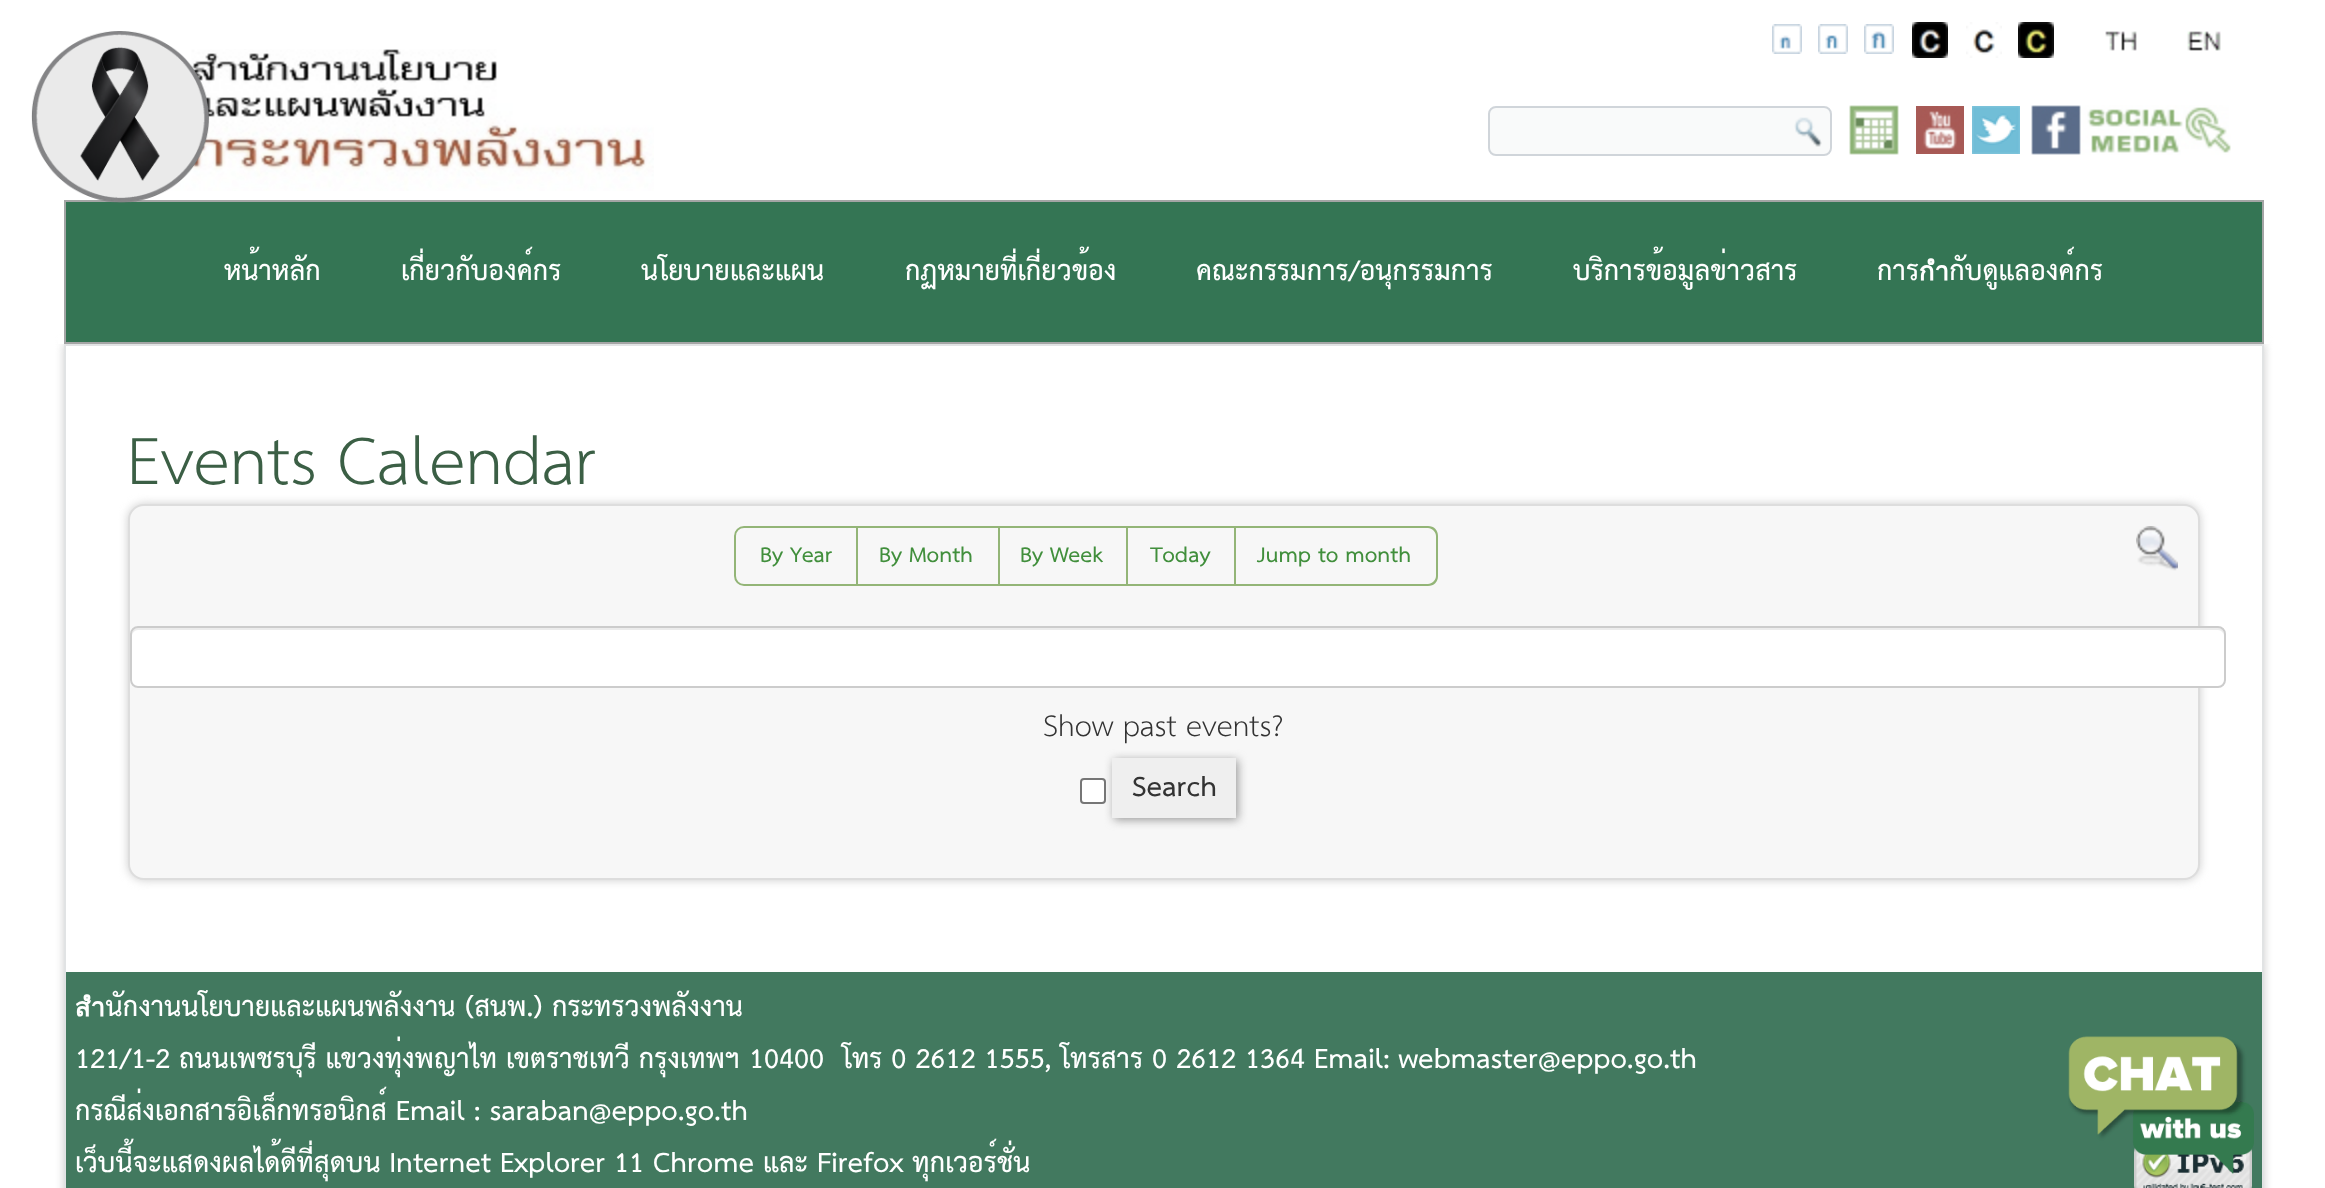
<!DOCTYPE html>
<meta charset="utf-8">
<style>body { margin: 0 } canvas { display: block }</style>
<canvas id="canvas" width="2325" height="1188"></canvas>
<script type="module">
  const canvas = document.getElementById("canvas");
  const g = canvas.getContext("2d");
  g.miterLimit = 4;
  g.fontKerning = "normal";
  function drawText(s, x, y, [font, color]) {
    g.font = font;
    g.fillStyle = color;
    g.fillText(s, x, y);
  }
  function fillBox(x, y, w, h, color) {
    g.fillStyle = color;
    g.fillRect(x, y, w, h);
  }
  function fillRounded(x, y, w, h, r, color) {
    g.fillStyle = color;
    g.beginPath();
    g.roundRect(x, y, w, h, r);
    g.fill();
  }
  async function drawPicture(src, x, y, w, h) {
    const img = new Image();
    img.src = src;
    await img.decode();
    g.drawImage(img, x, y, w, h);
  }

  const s1 = ["bold 26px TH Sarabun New", "#FFFFFF"];
  const s2 = ["63px TH Sarabun New", "#3B5F45"];
  const s3 = ["bold 20px TH Sarabun New", "#418F3C"];
  const s4 = ["28px TH Sarabun New", "#333333"];
  const s5 = ["bold 26px TH Sarabun New", "#333333"];

  fillBox(0, 0, 2325, 1188, "#FFFFFF");
  await drawPicture("pic2.png", 101, 49, 553, 142);
  g.save();
  g.beginPath();
  g.moveTo(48, 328);
  g.lineTo(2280, 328);
  g.lineTo(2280, 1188);
  g.lineTo(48, 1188);
  g.closePath();
  g.moveTo(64, 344);
  g.lineTo(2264, 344);
  g.lineTo(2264, 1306);
  g.lineTo(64, 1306);
  g.closePath();
  g.clip("evenodd");
  g.fillStyle = "#CCCCCC";
  g.filter = "blur(5px)";
  g.beginPath();
  g.rect(64, 344, 2200, 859);
  g.fill();
  g.filter = "none";
  g.restore();
  fillBox(58, 336, 2212, 8, "#FFFFFF");
  g.fillStyle = "#347554";
  g.beginPath();
  g.rect(65, 201, 2198, 142);
  g.fill();
  g.strokeStyle = "#A4A5A5";
  g.lineWidth = 2;
  g.stroke();
  await drawPicture("pic1.png", 31, 31, 179, 172);
  await drawPicture("pic3.png", 1772, 24, 30, 30);
  await drawPicture("pic4.png", 1818, 24, 30, 30);
  await drawPicture("pic5.png", 1864, 24, 30, 30);
  await drawPicture("pic6.png", 1912, 22, 36, 36);
  await drawPicture("pic7.png", 1966, 22, 36, 36);
  await drawPicture("pic8.png", 2018, 22, 36, 36);
  await drawPicture("pic9.png", 2105, 31, 32, 20);
  await drawPicture("pic10.png", 2187, 31, 34, 20);
  g.fillStyle = "#F9FAFA";
  g.beginPath();
  g.roundRect(1489, 107, 342, 48, 7);
  g.fill();
  g.strokeStyle = "#D0D5DA";
  g.stroke();
  await drawPicture("pic11.png", 1794, 117, 28, 30);
  await drawPicture("pic12.png", 1849, 105, 50, 50);
  await drawPicture("pic13.png", 1916, 106, 48, 48);
  await drawPicture("pic14.png", 1972, 106, 48, 48);
  await drawPicture("pic15.png", 2031, 105, 200, 50);
  drawText("หน้าหลัก", 224, 280, s1);
  drawText("เกี่ยวกับองค์กร", 401, 280, s1);
  drawText("นโยบายและแผน", 641, 280, s1);
  drawText("กฏหมายที่เกี่ยวข้อง", 905, 280, s1);
  drawText("คณะกรรมการ/อนุกรรมการ", 1196, 280, s1);
  drawText("บริการข้อมูลข่าวสาร", 1573, 280, s1);
  drawText("การกำกับดูแลองค์กร", 1877, 280, s1);
  g.fillStyle = "#E1E3E4";
  g.beginPath();
  g.moveTo(64, 344);
  g.lineTo(2264, 344);
  g.lineTo(2262, 346);
  g.lineTo(66, 346);
  g.closePath();
  g.fill();
  g.fillStyle = "rgba(107, 116, 120, 0.2)";
  g.beginPath();
  g.moveTo(2264, 344);
  g.lineTo(2264, 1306);
  g.lineTo(2262, 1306);
  g.lineTo(2262, 346);
  g.closePath();
  g.fill();
  g.beginPath();
  g.moveTo(64, 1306);
  g.lineTo(64, 344);
  g.lineTo(66, 346);
  g.lineTo(66, 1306);
  g.closePath();
  g.fill();
  drawText("Events Calendar", 127, 484, s2);
  g.fillStyle = "#CCCCCC";
  g.filter = "blur(5px)";
  g.beginPath();
  g.roundRect(128, 504, 2072, 376, 16);
  g.fill();
  g.filter = "none";
  g.fillStyle = "#F7F7F7";
  g.beginPath();
  g.roundRect(129, 505, 2070, 374, 15);
  g.fill();
  g.strokeStyle = "#DDDDDD";
  g.stroke();
  g.beginPath();
  g.roundRect(735, 527, 122, 58, [9, 0, 0, 9]);
  g.strokeStyle = "#93B577";
  g.stroke();
  drawText("By Year", 760, 562, s3);
  fillBox(856, 526, 144, 2, "#93B577");
  fillBox(998, 526, 2, 60, "#93B577");
  fillBox(856, 584, 144, 2, "#93B577");
  drawText("By Month", 879, 562, s3);
  fillBox(996, 526, 132, 2, "#93B577");
  fillBox(1126, 526, 2, 60, "#93B577");
  fillBox(996, 584, 132, 2, "#93B577");
  drawText("By Week", 1020, 562, s3);
  fillBox(1126, 526, 110, 2, "#93B577");
  fillBox(1234, 526, 2, 60, "#93B577");
  fillBox(1126, 584, 110, 2, "#93B577");
  drawText("Today", 1150, 562, s3);
  g.fillStyle = "#93B577";
  g.beginPath();
  g.moveTo(1234, 526);
  g.lineTo(1428, 526);
  g.bezierCurveTo(1434, 526, 1438, 530, 1438, 536);
  g.lineTo(1438, 576);
  g.bezierCurveTo(1438, 582, 1434, 586, 1428, 586);
  g.lineTo(1234, 586);
  g.closePath();
  g.moveTo(1234, 528);
  g.lineTo(1428, 528);
  g.bezierCurveTo(1432, 528, 1436, 532, 1436, 536);
  g.lineTo(1436, 576);
  g.bezierCurveTo(1436, 580, 1432, 584, 1428, 584);
  g.lineTo(1234, 584);
  g.closePath();
  g.fill("evenodd");
  drawText("Jump to month", 1257, 562, s3);
  await drawPicture("pic16.png", 2136, 526, 42, 45);
  fillRounded(130, 626, 2096, 62, 8, "#FFFFFF");
  g.fillStyle = "#ECECEC";
  g.beginPath();
  g.moveTo(138, 630);
  g.lineTo(2218, 630);
  g.bezierCurveTo(2221, 630, 2224, 633, 2224, 636);
  g.bezierCurveTo(2224, 632, 2223, 628, 2218, 628);
  g.lineTo(138, 628);
  g.bezierCurveTo(133, 628, 132, 632, 132, 636);
  g.bezierCurveTo(132, 633, 135, 630, 138, 630);
  g.closePath();
  g.fill();
  g.beginPath();
  g.roundRect(131, 627, 2094, 60, 7);
  g.strokeStyle = "#CCCCCC";
  g.stroke();
  drawText("Show past events?", 1043, 736, s4);
  g.fillStyle = "#FFFFFF";
  g.beginPath();
  g.roundRect(1081, 779, 24, 24, 3);
  g.fill();
  g.strokeStyle = "#767676";
  g.stroke();
  g.fillStyle = "#999999";
  g.filter = "blur(5px)";
  g.beginPath();
  g.rect(1114, 760, 124, 60);
  g.fill();
  g.filter = "none";
  fillBox(1112, 758, 124, 60, "#EFEFEF");
  drawText("Search", 1132, 796, s5);
  fillBox(66, 972, 2196, 216, "#42795F");
  drawText("สำนักงานนโยบายและแผนพลังงาน (สนพ.) กระทรวงพลังงาน", 75, 1016, s1);
  drawText("121/1-2 ถนนเพชรบุรี แขวงทุ่งพญาไท เขตราชเทวี กรุงเทพฯ 10400  โทร 0 2612 1555, โทรสาร 0 2612 1364 Email: webmaster@eppo.go.th", 75, 1068, s1);
  drawText("กรณีส่งเอกสารอิเล็กทรอนิกส์ Email : saraban@eppo.go.th", 75, 1120, s1);
  drawText("เว็บนี้จะแสดงผลได้ดีที่สุดบน Internet Explorer 11 Chrome และ Firefox ทุกเวอร์ชั่น", 75, 1172, s1);
  await drawPicture("pic17.png", 2134, 1147, 118, 41);
  await drawPicture("pic18.png", 2068, 1036, 186, 138);
</script>
